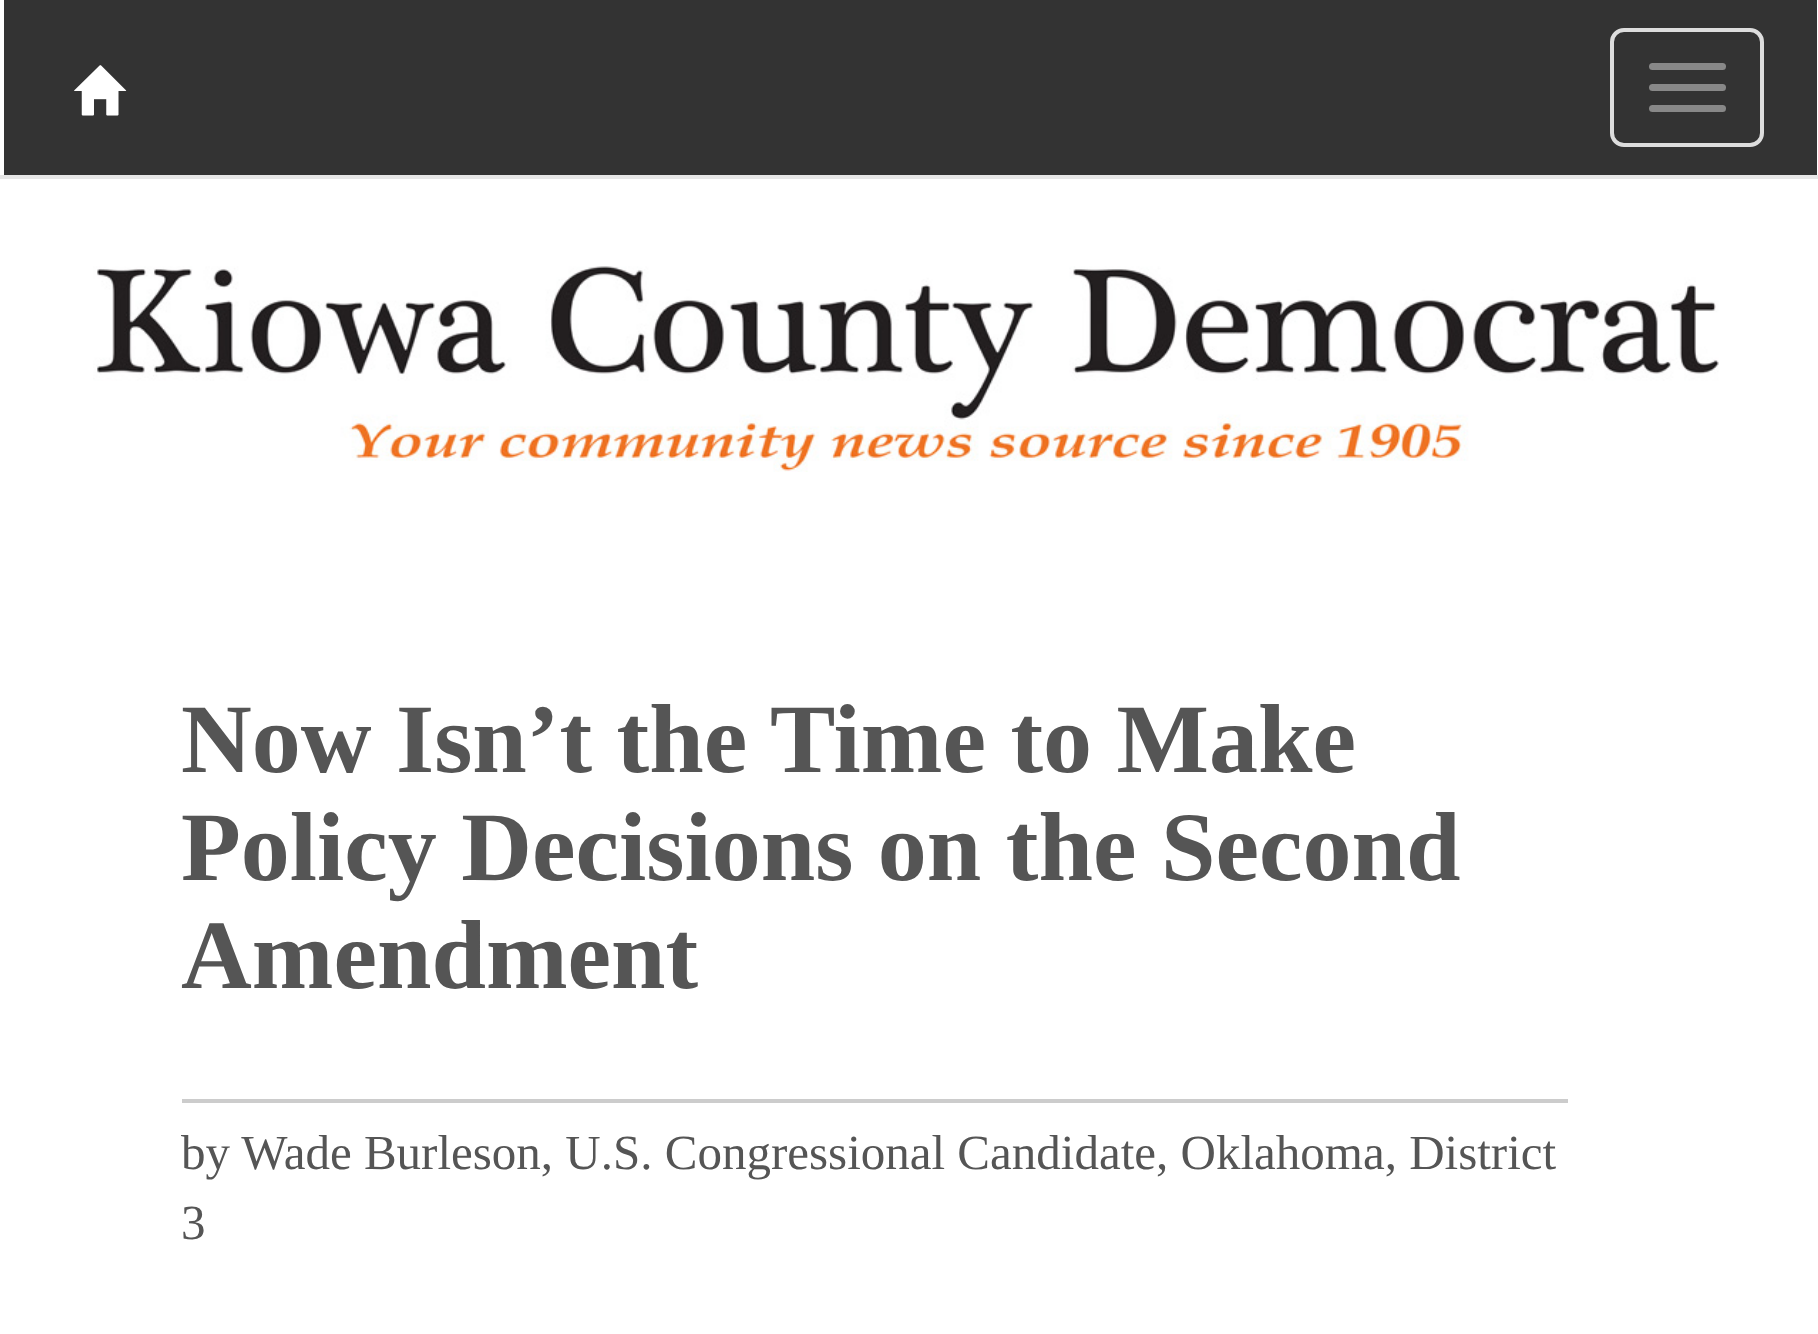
<!DOCTYPE html>
<meta charset="utf-8">
<style>body { margin: 0 } canvas { display: block }</style>
<canvas id="canvas" width="1818" height="1334"></canvas>
<script type="module">
  const canvas = document.getElementById("canvas");
  const g = canvas.getContext("2d");
  g.miterLimit = 4;
  g.fontKerning = "normal";
  function drawText(s, x, y, [font, color]) {
    g.font = font;
    g.fillStyle = color;
    g.fillText(s, x, y);
  }
  function fillBox(x, y, w, h, color) {
    g.fillStyle = color;
    g.fillRect(x, y, w, h);
  }
  function fillRounded(x, y, w, h, r, color) {
    g.fillStyle = color;
    g.beginPath();
    g.roundRect(x, y, w, h, r);
    g.fill();
  }
  async function drawPicture(src, x, y, w, h) {
    const img = new Image();
    img.src = src;
    await img.decode();
    g.drawImage(img, x, y, w, h);
  }

  const s1 = ["bold 98px Liberation Serif", "#555555"];
  const s2 = ["49px Liberation Serif", "#555555"];

  fillBox(0, 0, 1818, 1334, "#FFFFFF");
  fillBox(0, 175, 1818, 4, "#E7E7E7");
  fillBox(4, 0, 1813, 175, "#333333");
  await drawPicture("pic1.png", 74, 65, 53, 51);
  g.beginPath();
  g.roundRect(1612, 30, 150, 115, 12);
  g.strokeStyle = "#DDDDDD";
  g.lineWidth = 4;
  g.stroke();
  fillRounded(1649, 63, 77, 7, 3.5, "#888888");
  fillRounded(1649, 84, 77, 7, 3.5, "#888888");
  fillRounded(1649, 105, 77, 7, 3.5, "#888888");
  await drawPicture("pic2.png", 93, 266, 1626, 206);
  drawText("Now Isn’t the Time to Make", 181, 772, s1);
  drawText("Policy Decisions on the Second", 181, 880, s1);
  drawText("Amendment", 181, 988, s1);
  fillBox(182, 1099, 1386, 4, "#CCCCCC");
  drawText("by Wade Burleson, U.S. Congressional Candidate, Oklahoma, District", 181, 1169, s2);
  drawText("3", 181, 1239, s2);
</script>
